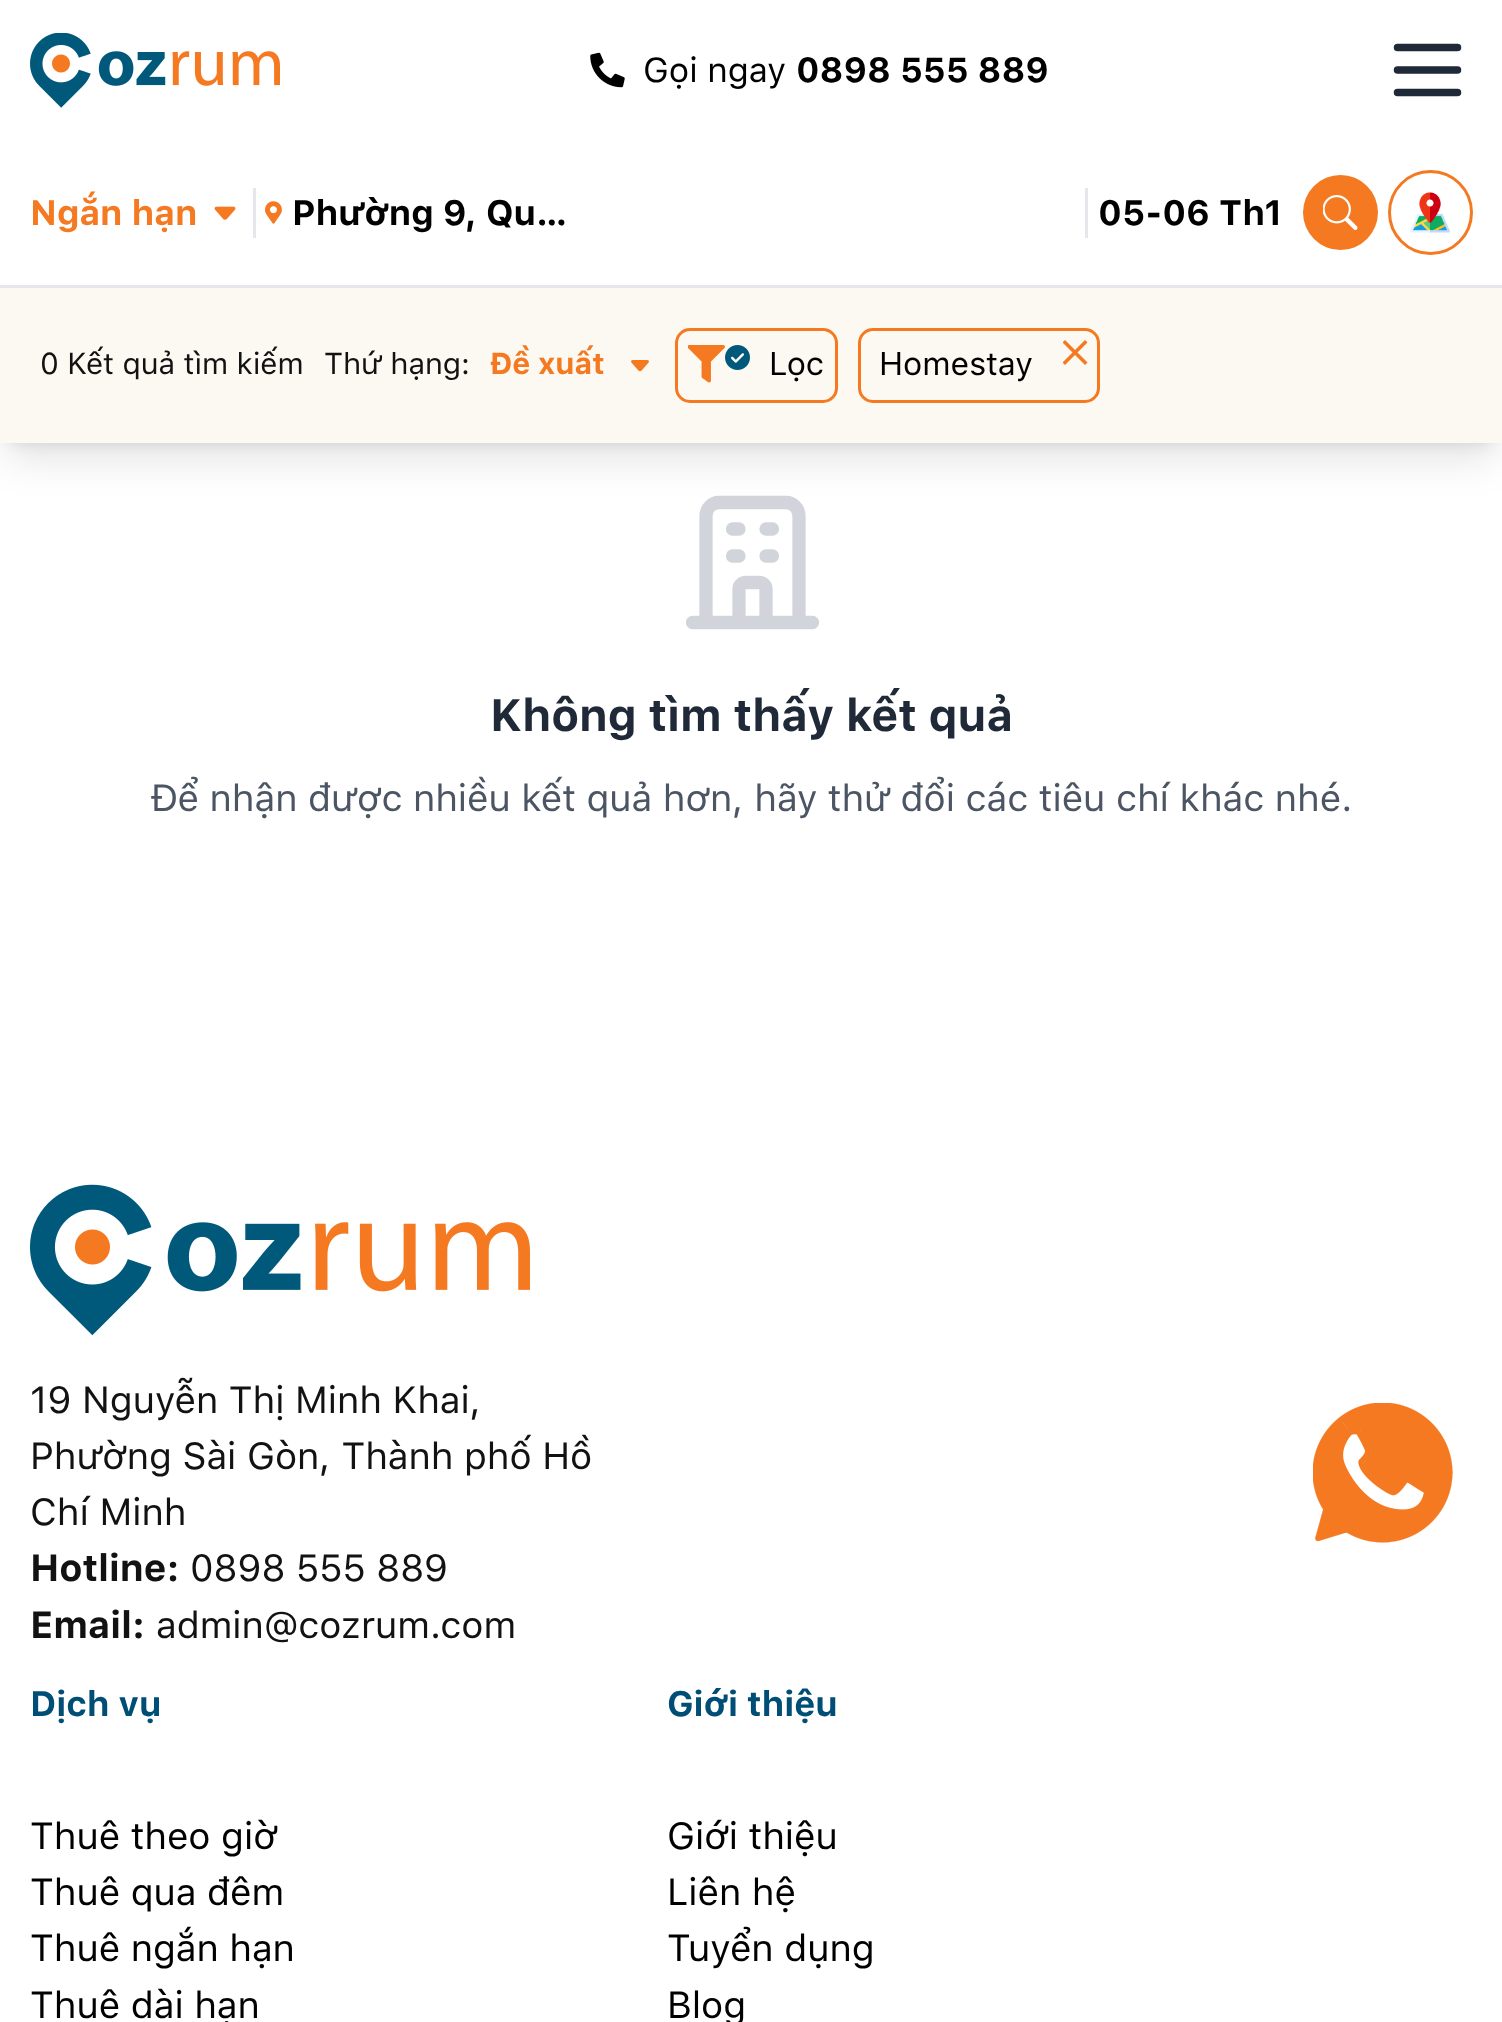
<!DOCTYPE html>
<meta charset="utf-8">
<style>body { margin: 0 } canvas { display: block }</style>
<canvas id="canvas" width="1502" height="2022"></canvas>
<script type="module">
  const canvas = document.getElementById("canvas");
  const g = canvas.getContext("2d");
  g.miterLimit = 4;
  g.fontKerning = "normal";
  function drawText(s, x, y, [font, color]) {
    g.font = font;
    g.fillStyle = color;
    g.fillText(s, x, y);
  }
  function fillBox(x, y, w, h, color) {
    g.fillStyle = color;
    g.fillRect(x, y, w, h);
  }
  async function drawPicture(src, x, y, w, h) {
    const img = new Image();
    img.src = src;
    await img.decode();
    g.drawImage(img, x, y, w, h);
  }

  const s1 = ["34.5px 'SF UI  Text'", "#000000"];
  const s2 = ["bold 34.5px 'SF UI  Text'", "#000000"];
  const s3 = ["bold 35px 'SF UI  Text'", "#F47920"];
  const s4 = ["bold 35px 'SF UI  Text'", "#000000"];
  const s5 = ["30px 'SF UI  Text'", "#121212"];
  const s6 = ["bold 30px 'SF UI  Text'", "#F47920"];
  const s7 = ["32.5px 'SF UI  Text'", "#000000"];
  const s8 = ["bold 45px 'SF UI  Text'", "#1F2937"];
  const s9 = ["37.5px 'SF UI  Text'", "#4B5563"];
  const s10 = ["37.5px 'SF UI  Text'", "#121212"];
  const s11 = ["bold 37.5px 'SF UI  Text'", "#121212"];
  const s12 = ["bold 35px 'SF UI  Text'", "#004E75"];
  const s13 = ["37.5px 'SF UI  Text'", "#000000"];

  fillBox(0, 0, 1502, 2022, "#FFFFFF");
  await drawPicture("pic1.png", 30, 33, 250, 75);
  await drawPicture("pic2.png", 590, 52, 35, 36);
  drawText("Gọi ngay", 643, 82, s1);
  drawText("0898 555 889", 796, 82, s2);
  g.beginPath();
  g.moveTo(1397.5, 47.5);
  g.lineTo(1457.5, 47.5);
  g.moveTo(1397.5, 70);
  g.lineTo(1457.5, 70);
  g.moveTo(1397.5, 92.5);
  g.lineTo(1457.5, 92.5);
  g.strokeStyle = "#1F2937";
  g.lineWidth = 7.5;
  g.lineCap = "round";
  g.lineJoin = "round";
  g.stroke();
  g.fillStyle = "rgba(0, 0, 0, 0.1)";
  g.filter = "blur(7.5px)";
  g.beginPath();
  g.rect(10, 308, 1483, 135);
  g.fill();
  g.filter = "none";
  g.beginPath();
  g.moveTo(799, 622.5);
  g.lineTo(799, 516);
  g.bezierCurveTo(799, 508.5, 793, 502.5, 786, 502.5);
  g.lineTo(719, 502.5);
  g.bezierCurveTo(712, 502.5, 706, 508.5, 706, 516);
  g.lineTo(706, 622.5);
  g.moveTo(799, 622.5);
  g.lineTo(812.5, 622.5);
  g.moveTo(799, 622.5);
  g.lineTo(766, 622.5);
  g.moveTo(706, 622.5);
  g.lineTo(692.5, 622.5);
  g.moveTo(706, 622.5);
  g.lineTo(739, 622.5);
  g.moveTo(732.5, 529);
  g.lineTo(739, 529);
  g.moveTo(732.5, 556);
  g.lineTo(739, 556);
  g.moveTo(766, 529);
  g.lineTo(772.5, 529);
  g.moveTo(766, 556);
  g.lineTo(772.5, 556);
  g.moveTo(739, 622.5);
  g.lineTo(739, 589);
  g.bezierCurveTo(739, 585.5, 742, 582.5, 746, 582.5);
  g.lineTo(759, 582.5);
  g.bezierCurveTo(763, 582.5, 766, 585.5, 766, 589);
  g.lineTo(766, 622.5);
  g.moveTo(739, 622.5);
  g.lineTo(766, 622.5);
  g.strokeStyle = "#D1D5DB";
  g.lineWidth = 13.3;
  g.stroke();
  g.filter = "blur(19px)";
  g.beginPath();
  g.rect(8, 320, 1487, 140);
  g.fill();
  g.filter = "none";
  fillBox(0, 285, 1502, 3, "#E5E7EB");
  drawText("Ngắn hạn", 30, 225, s3);
  await drawPicture("pic3.png", 214, 206, 22, 14);
  fillBox(253, 188, 3, 50, "#E5E7EB");
  await drawPicture("pic4.png", 265, 201, 17, 23);
  drawText("Phường 9, Qu…", 292, 225, s4);
  fillBox(1085, 188, 3, 50, "#E5E7EB");
  drawText("05-06 Th1", 1098, 225, s4);
  g.fillStyle = "#F47920";
  g.beginPath();
  g.arc(1340.5, 212.5, 37.5, 0, Math.PI * 2);
  g.fill();
  await drawPicture("pic5.png", 1323, 195, 35, 35);
  g.beginPath();
  g.arc(1430.5, 212.5, 41, 0, Math.PI * 2);
  g.strokeStyle = "#F47920";
  g.lineWidth = 3;
  g.stroke();
  await drawPicture("pic6.png", 1410, 192, 40, 41);
  fillBox(0, 288, 1502, 155, "#FCF9F2");
  drawText("0 Kết quả tìm kiếm", 40, 374, s5);
  drawText("Thứ hạng:", 324, 374, s5);
  drawText("Đề xuất", 490, 374, s6);
  await drawPicture("pic7.png", 631, 360, 18, 12);
  g.beginPath();
  g.roundRect(676.5, 329.5, 160, 72, 13.5);
  g.lineJoin = "miter";
  g.stroke();
  await drawPicture("pic8.png", 688, 345, 37, 38);
  await drawPicture("pic9.png", 725, 345, 25, 25);
  drawText("Lọc", 769, 375, s7);
  g.beginPath();
  g.roundRect(859.5, 329.5, 239, 72, 13.5);
  g.stroke();
  drawText("Homestay", 879, 375, s7);
  await drawPicture("pic10.png", 1063, 340, 25, 25);
  drawText("Không tìm thấy kết quả", 490, 731, s8);
  drawText("Để nhận được nhiều kết quả hơn, hãy thử đổi các tiêu chí khác nhé.", 151, 811, s9);
  await drawPicture("pic11.png", 30, 1184, 500, 152);
  drawText("19 Nguyễn Thị Minh Khai,", 30, 1413, s10);
  drawText("Phường Sài Gòn, Thành phố Hồ", 30, 1469, s10);
  drawText("Chí Minh", 30, 1525, s10);
  drawText("Hotline:", 30, 1581, s11);
  drawText("0898 555 889", 190, 1581, s10);
  drawText("Email:", 30, 1638, s11);
  drawText("admin@cozrum.com", 156, 1638, s10);
  drawText("Dịch vụ", 30, 1716, s12);
  drawText("Thuê theo giờ", 30, 1849, s13);
  drawText("Thuê qua đêm", 30, 1905, s13);
  drawText("Thuê ngắn hạn", 30, 1961, s13);
  drawText("Thuê dài hạn", 30, 2018, s13);
  drawText("Giới thiệu", 667, 1716, s12);
  drawText("Giới thiệu", 667, 1849, s13);
  drawText("Liên hệ", 667, 1905, s13);
  drawText("Tuyển dụng", 667, 1961, s13);
  drawText("Blog", 667, 2018, s13);
  await drawPicture("pic12.png", 1313, 1403, 140, 140);
</script>
